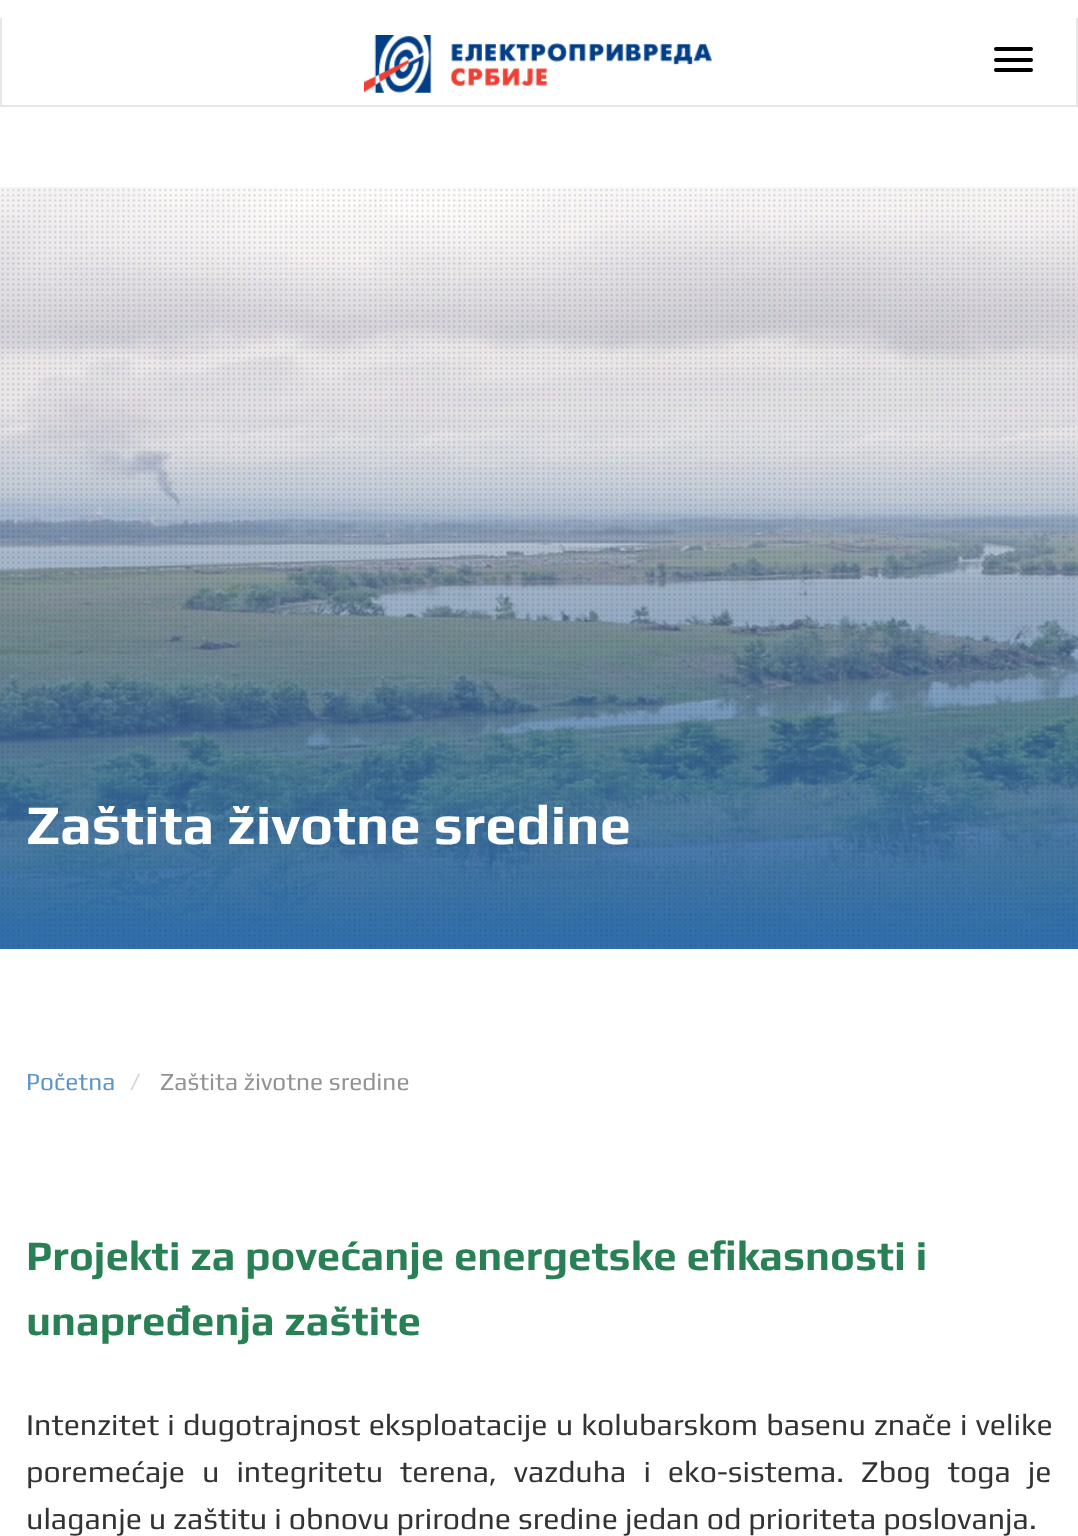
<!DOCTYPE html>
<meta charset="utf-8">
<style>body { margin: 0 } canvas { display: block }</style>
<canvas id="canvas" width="1078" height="1536"></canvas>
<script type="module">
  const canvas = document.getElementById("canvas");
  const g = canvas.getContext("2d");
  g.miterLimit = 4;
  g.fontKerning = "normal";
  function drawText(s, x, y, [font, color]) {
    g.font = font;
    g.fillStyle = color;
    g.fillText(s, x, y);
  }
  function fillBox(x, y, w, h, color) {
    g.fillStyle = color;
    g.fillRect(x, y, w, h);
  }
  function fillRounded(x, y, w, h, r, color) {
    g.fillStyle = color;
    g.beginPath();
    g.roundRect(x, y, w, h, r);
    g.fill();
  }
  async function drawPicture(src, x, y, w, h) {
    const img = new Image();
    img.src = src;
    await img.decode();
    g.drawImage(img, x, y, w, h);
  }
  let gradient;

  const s1 = ["bold 56px Play", "#FFFFFF"];
  const s2 = ["24.5px Play", "#5D95C6"];
  const s3 = ["24.5px Play", "#D6D6D6"];
  const s4 = ["24.5px Play", "#939393"];
  const s5 = ["bold 42px Play", "#288054"];
  const s6 = ["30.35px Play", "#333333"];

  fillBox(0, 0, 1078, 1536, "#FFFFFF");
  fillBox(1076, 18, 2, 89, "#E7E7E7");
  fillBox(0, 105, 1078, 2, "#E7E7E7");
  fillBox(0, 18, 2, 89, "#E7E7E7");
  await drawPicture("pic1.png", 364, 35, 348, 58);
  fillRounded(994, 47, 39, 4, 2, "#000000");
  fillRounded(994, 58, 39, 4, 2, "#000000");
  fillRounded(994, 68, 39, 4, 2, "#000000");
  await drawPicture("pic2.png", 0, 187, 1078, 759);
  gradient = g.createLinearGradient(539, 161, 539, 949);
  gradient.addColorStop(0.3, "rgba(48, 110, 171, 0)");
  gradient.addColorStop(0.31, "rgba(48, 110, 171, 0)");
  gradient.addColorStop(1, "#306EAB");
  g.fillStyle = gradient;
  g.fillRect(0, 417, 1078, 532);
  await drawPicture("pic3.png", 1, 188, 1077, 759);
  drawText("Zaštita životne sredine", 26, 844, s1);
  drawText("Početna", 26, 1090, s2);
  drawText("/", 130, 1090, s3);
  drawText("Zaštita životne sredine", 160, 1090, s4);
  drawText("Projekti za povećanje energetske efikasnosti i", 26, 1270, s5);
  drawText("unapređenja zaštite", 26, 1335, s5);
  g.wordSpacing = "1.25px";
  drawText("Intenzitet i dugotrajnost eksploatacije u kolubarskom basenu znače i velike", 26, 1435, s6);
  g.wordSpacing = "10px";
  drawText("poremećaje u integritetu terena, vazduha i eko-sistema. Zbog toga je", 26, 1482, s6);
  g.wordSpacing = "0px";
  drawText("ulaganje u zaštitu i obnovu prirodne sredine jedan od prioriteta poslovanja.", 26, 1529, s6);
</script>
